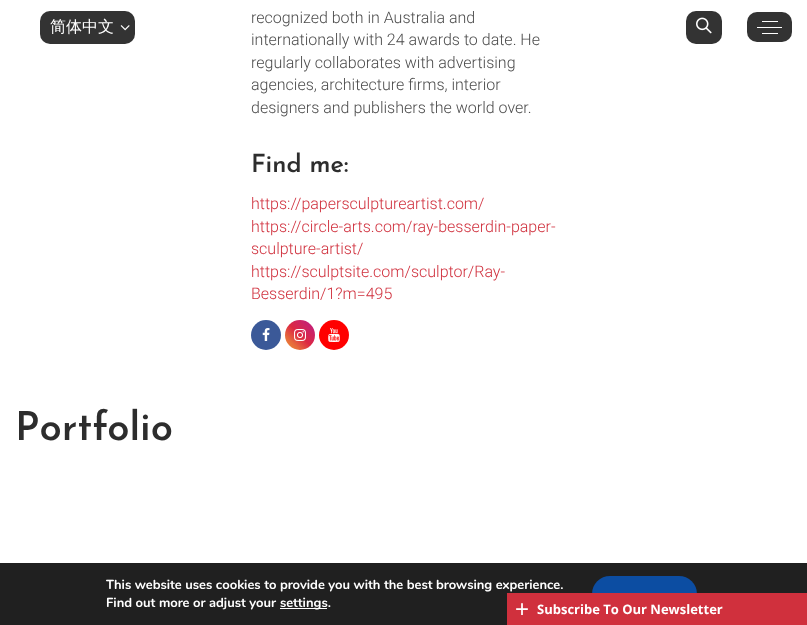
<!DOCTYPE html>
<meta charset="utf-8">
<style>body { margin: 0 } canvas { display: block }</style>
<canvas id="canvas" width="807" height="625"></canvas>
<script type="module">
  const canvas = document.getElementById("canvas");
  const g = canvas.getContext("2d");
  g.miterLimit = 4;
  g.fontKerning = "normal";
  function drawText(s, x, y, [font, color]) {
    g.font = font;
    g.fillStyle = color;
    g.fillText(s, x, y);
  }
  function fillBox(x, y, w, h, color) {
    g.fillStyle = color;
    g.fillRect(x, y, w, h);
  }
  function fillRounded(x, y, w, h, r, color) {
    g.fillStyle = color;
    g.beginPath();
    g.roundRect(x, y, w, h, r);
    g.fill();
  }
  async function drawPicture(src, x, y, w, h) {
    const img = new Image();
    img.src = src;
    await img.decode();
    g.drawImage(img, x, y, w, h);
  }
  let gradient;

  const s1 = ["300 16px Roboto", "#4C4C4C"];
  const s2 = ["600 25px Josefin Sans", "#2D2D2D"];
  const s3 = ["300 16px Roboto", "#D0303D"];
  const s4 = ["600 40px Josefin Sans", "#2D2D2D"];
  const s5 = ["500 16px WenQuanYi Zen Hei", "#FFFFFF"];
  const s6 = ["bold 13px Nunito", "#FFFFFF"];
  const s7 = ["24px Liberation Sans", "#FFFFFF"];
  const s8 = ["bold 13px Open Sans", "#FFFFFF"];

  fillBox(0, 0, 807, 625, "#FFFFFF");
  drawText("recognized both in Australia and", 251, 23, s1);
  drawText("internationally with 24 awards to date. He", 251, 45, s1);
  drawText("regularly collaborates with advertising", 251, 68, s1);
  drawText("agencies, architecture firms, interior", 251, 90, s1);
  drawText("designers and publishers the world over.", 251, 113, s1);
  drawText("Find me:", 251, 172, s2);
  drawText("https://papersculptureartist.com/", 251, 209, s3);
  drawText("https://circle-arts.com/ray-besserdin-paper-", 251, 232, s3);
  drawText("sculpture-artist/", 251, 254, s3);
  drawText("https://sculptsite.com/sculptor/Ray-", 251, 277, s3);
  drawText("Besserdin/1?m=495", 251, 299, s3);
  g.fillStyle = "#3B5998";
  g.beginPath();
  g.arc(266, 335, 15, 0, Math.PI * 2);
  g.fill();
  await drawPicture("pic1.png", 262, 328, 8, 13);
  gradient = g.createLinearGradient(285, 350, 315, 320);
  gradient.addColorStop(0, "#F09433");
  gradient.addColorStop(0.25, "#E6683C");
  gradient.addColorStop(0.5, "#DC2743");
  gradient.addColorStop(0.75, "#CC2366");
  gradient.addColorStop(1, "#BC1888");
  g.fillStyle = gradient;
  g.beginPath();
  g.arc(300, 335, 15, 0, Math.PI * 2);
  g.fill();
  await drawPicture("pic2.png", 294, 329, 12, 12);
  g.fillStyle = "#FF0000";
  g.beginPath();
  g.arc(334, 335, 15, 0, Math.PI * 2);
  g.fill();
  await drawPicture("pic3.png", 328, 328, 12, 14);
  drawText("Portfolio", 15, 440, s4);
  fillRounded(40, 11, 95, 33, 10, "#333333");
  drawText("简体中文", 50, 32, s5);
  await drawPicture("pic4.png", 120, 25, 10, 6);
  fillRounded(686, 11, 36, 33, 10, "#333333");
  await drawPicture("pic5.png", 696, 17, 16, 17);
  fillRounded(747, 12, 45, 30, 10, "#333333");
  fillBox(762, 21, 16, 1, "#FFFFFF");
  fillBox(757, 27, 25, 1, "#FFFFFF");
  fillBox(762, 33, 16, 1, "#FFFFFF");
  fillBox(0, 563, 807, 62, "#202020");
  drawText("This website uses cookies to provide you with the best browsing experience.", 106, 589, s6);
  drawText("Find out more or adjust your", 106, 607, s6);
  fillBox(280, 608, 47, 1, "#FFFFFF");
  drawText("settings.", 280, 607, s6);
  fillRounded(592, 576, 105, 36, 18, "#0C4DA2");
  fillBox(507, 593, 300, 32, "#D0303D");
  drawText("+", 515, 617, s7);
  drawText("Subscribe To Our Newsletter", 537, 614, s8);
</script>
